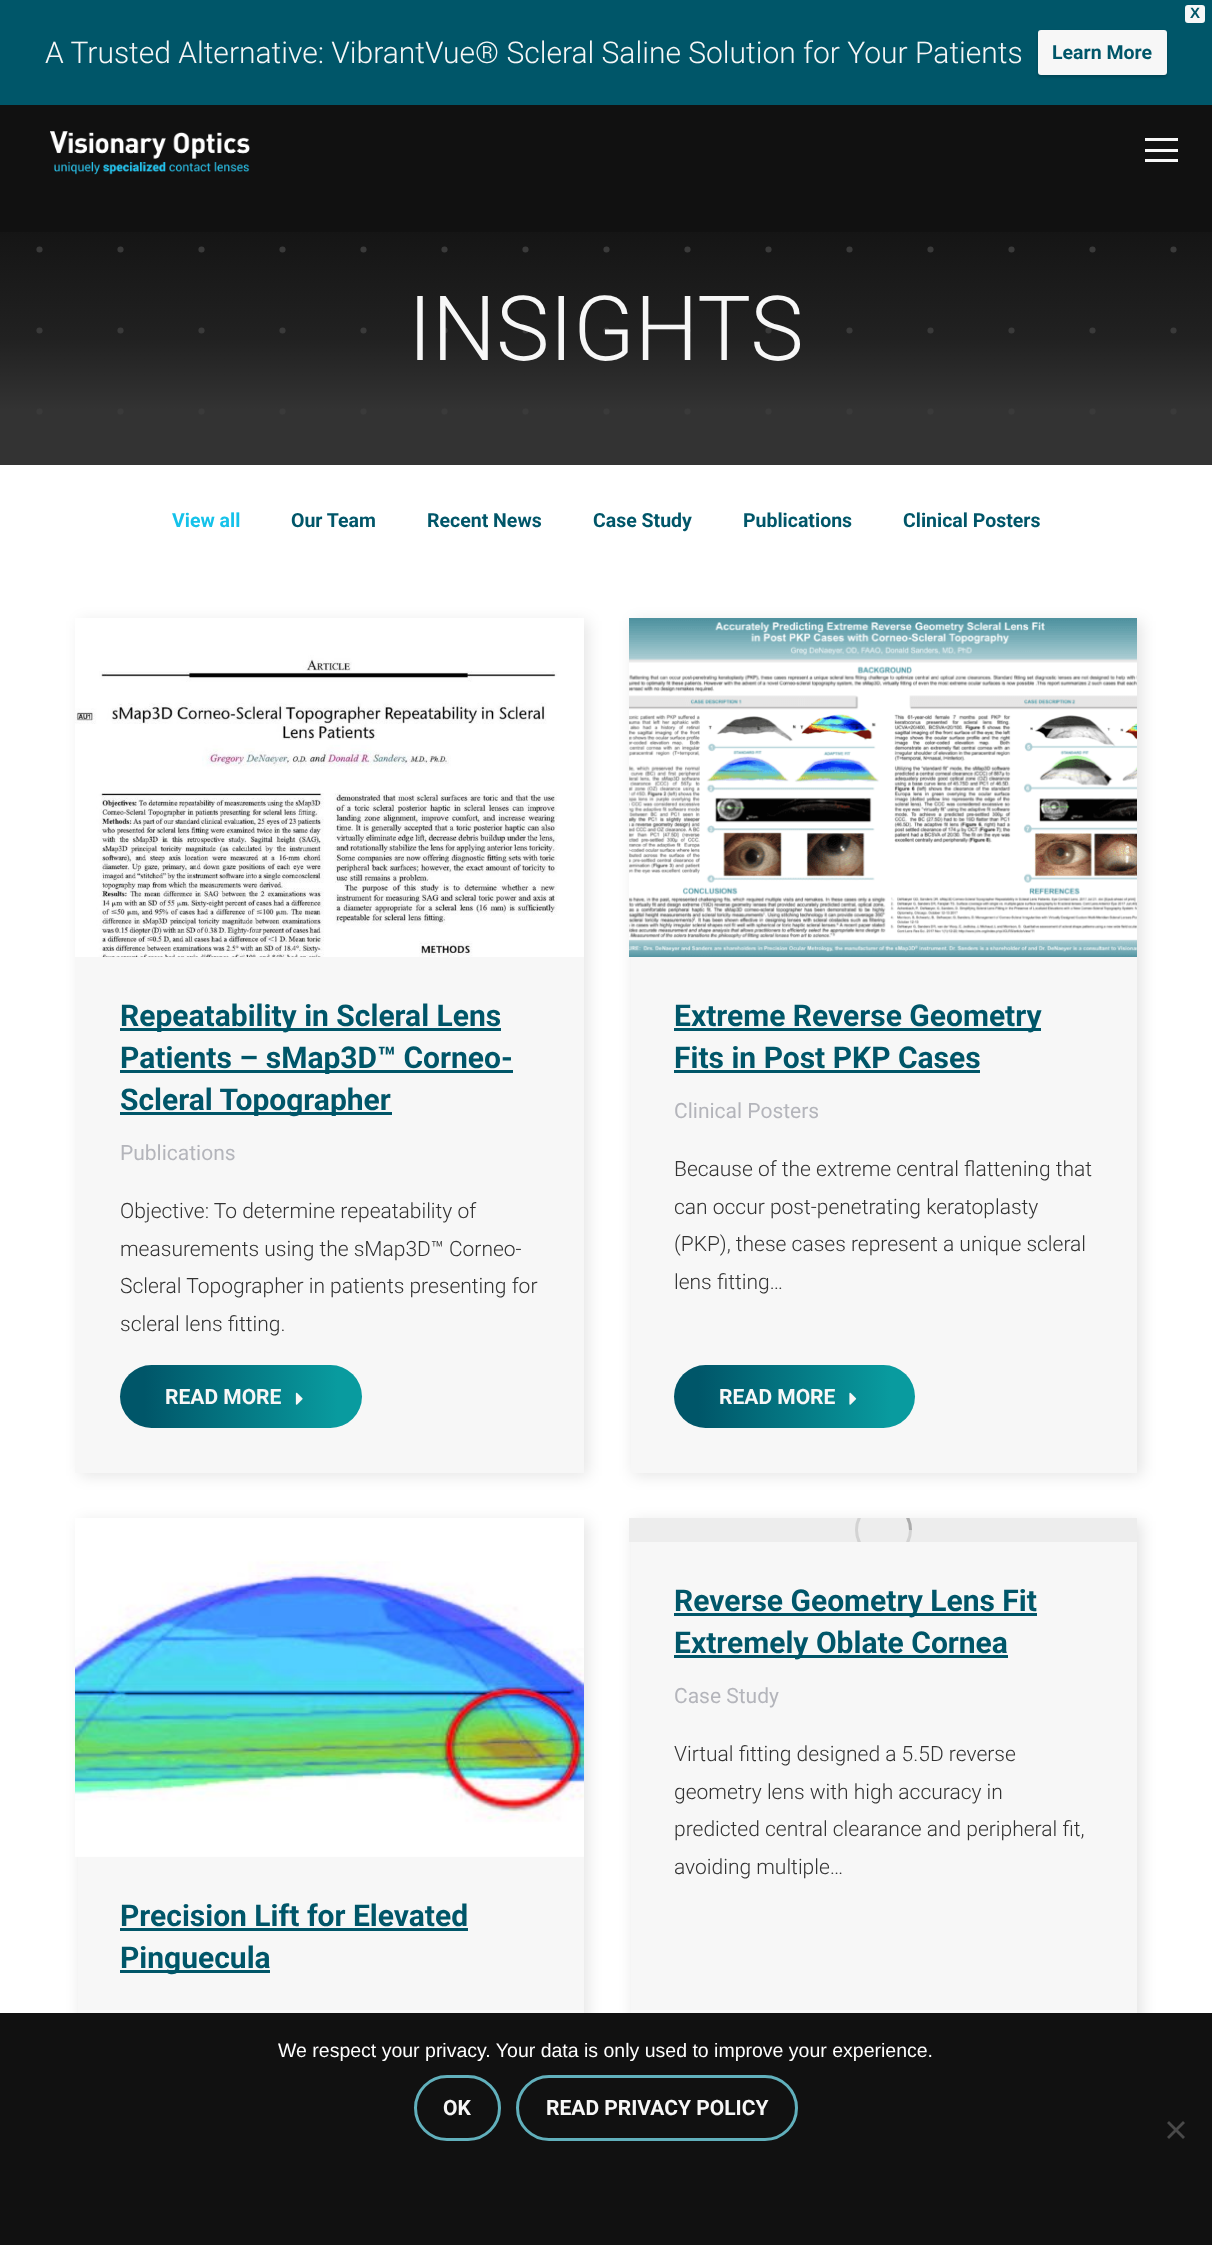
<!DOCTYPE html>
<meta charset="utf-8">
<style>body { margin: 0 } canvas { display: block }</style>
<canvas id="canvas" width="1212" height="2245"></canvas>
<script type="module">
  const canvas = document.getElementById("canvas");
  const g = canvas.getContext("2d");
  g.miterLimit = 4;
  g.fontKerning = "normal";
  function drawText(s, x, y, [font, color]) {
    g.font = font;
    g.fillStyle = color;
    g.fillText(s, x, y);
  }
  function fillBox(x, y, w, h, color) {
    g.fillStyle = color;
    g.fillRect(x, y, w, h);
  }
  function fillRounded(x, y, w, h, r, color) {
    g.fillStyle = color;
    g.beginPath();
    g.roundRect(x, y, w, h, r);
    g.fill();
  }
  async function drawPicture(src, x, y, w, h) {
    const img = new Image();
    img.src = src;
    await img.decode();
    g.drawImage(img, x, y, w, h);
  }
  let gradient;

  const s1 = ["bold 15px Liberation Sans", "#005669"];
  const s2 = ["300 30px Roboto", "#F7F7F7"];
  const s3 = ["bold 19.5px Roboto", "#005669"];
  const s4 = ["300 90px Roboto", "#F7F7F7"];
  const s5 = ["bold 19.5px Roboto", "#15C2EA"];
  const s6 = ["bold 30px Roboto", "#005669"];
  const s7 = ["21px Roboto", "#B4B5BB"];
  const s8 = ["300 21px Roboto", "#333333"];
  const s9 = ["bold 21px Roboto", "#F7F7F7"];
  const s10 = ["19.5px Liberation Sans", "#FFFFFF"];

  fillBox(0, 0, 1212, 2245, "#FFFFFF");
  fillBox(0, 0, 1212, 105, "#005669");
  g.fillStyle = "#F7F7F7";
  g.beginPath();
  g.roundRect(1186, 6, 18, 16, 2);
  g.fill();
  g.strokeStyle = "#F7F7F7";
  g.lineWidth = 2;
  g.stroke();
  drawText("X", 1190, 18, s1);
  drawText("A Trusted Alternative: VibrantVue® Scleral Saline Solution for Your Patients", 45, 63, s2);
  g.fillStyle = "rgba(0, 0, 0, 0.2)";
  g.filter = "blur(1.5px)";
  g.beginPath();
  g.roundRect(1038, 32, 129, 45, 3);
  g.fill();
  g.filter = "none";
  fillRounded(1038, 30, 129, 45, 3, "#F7F7F7");
  drawText("Learn More", 1052, 59, s3);
  fillBox(0, 105, 1212, 127, "#111111");
  await drawPicture("pic1.png", 50, 131, 200, 44);
  fillBox(1145, 138, 33, 3, "#F7F7F7");
  fillBox(1145, 149, 33, 3, "#F7F7F7");
  fillBox(1145, 159, 33, 3, "#F7F7F7");
  await drawPicture("pic2.png", 0, 232, 1212, 233);
  drawText("INSIGHTS", 408, 360, s4);
  drawText("View all", 172, 527, s5);
  drawText("Our Team", 291, 527, s3);
  drawText("Recent News", 427, 527, s3);
  drawText("Case Study", 593, 527, s3);
  drawText("Publications", 743, 527, s3);
  drawText("Clinical Posters", 903, 527, s3);
  g.fillStyle = "rgba(0, 0, 0, 0.1)";
  g.filter = "blur(7.5px)";
  g.beginPath();
  g.rect(80, 621, 508, 855);
  g.fill();
  g.filter = "none";
  fillBox(75, 957, 509, 516, "#F7F7F7");
  await drawPicture("pic3.png", 75, 618, 509, 339);
  fillBox(120, 1028, 381, 3, "#005669");
  drawText("Repeatability in Scleral Lens", 120, 1026, s6);
  fillBox(120, 1070, 393, 3, "#005669");
  drawText("Patients – sMap3D™ Corneo-", 120, 1068, s6);
  fillBox(120, 1112, 272, 3, "#005669");
  drawText("Scleral Topographer", 120, 1110, s6);
  drawText("Publications", 120, 1160, s7);
  drawText("Objective: To determine repeatability of", 120, 1218, s8);
  drawText("measurements using the sMap3D™ Corneo-", 120, 1256, s8);
  drawText("Scleral Topographer in patients presenting for", 120, 1293, s8);
  drawText("scleral lens fitting.", 120, 1331, s8);
  gradient = g.createLinearGradient(120, 1397, 362, 1397);
  gradient.addColorStop(0, "#005669");
  gradient.addColorStop(0.1, "#005669");
  gradient.addColorStop(0.9, "#099B9F");
  gradient.addColorStop(1, "#099B9F");
  g.fillStyle = gradient;
  g.beginPath();
  g.roundRect(120, 1365, 242, 63, 31.5);
  g.fill();
  drawText("READ MORE", 165, 1404, s9);
  await drawPicture("pic4.png", 295, 1392, 8, 13);
  g.fillStyle = "rgba(0, 0, 0, 0.1)";
  g.filter = "blur(7.5px)";
  g.beginPath();
  g.rect(633, 621, 509, 855);
  g.fill();
  g.filter = "none";
  fillBox(631, 957, 506, 516, "#F7F7F7");
  await drawPicture("pic5.png", 629, 618, 508, 339);
  fillBox(674, 1028, 367, 3, "#005669");
  drawText("Extreme Reverse Geometry", 674, 1026, s6);
  drawText("Fits in Post PKP Cases", 674, 1068, s6);
  fillBox(674, 1070, 306, 3, "#005669");
  drawText("Clinical Posters", 674, 1118, s7);
  drawText("Because of the extreme central flattening that", 674, 1176, s8);
  drawText("can occur post-penetrating keratoplasty", 674, 1214, s8);
  drawText("(PKP), these cases represent a unique scleral", 674, 1251, s8);
  drawText("lens fitting…", 674, 1289, s8);
  gradient = g.createLinearGradient(674, 1397, 915, 1397);
  gradient.addColorStop(0, "#005669");
  gradient.addColorStop(0.1, "#005669");
  gradient.addColorStop(0.9, "#099B9F");
  gradient.addColorStop(1, "#099B9F");
  g.fillStyle = gradient;
  g.beginPath();
  g.roundRect(674, 1365, 241, 63, 31.5);
  g.fill();
  drawText("READ MORE", 719, 1404, s9);
  await drawPicture("pic6.png", 849, 1392, 8, 13);
  g.fillStyle = "rgba(0, 0, 0, 0.1)";
  g.filter = "blur(7.5px)";
  g.beginPath();
  g.rect(633, 1521, 509, 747);
  g.fill();
  g.filter = "none";
  fillBox(631, 1542, 506, 471, "#F7F7F7");
  fillBox(629, 1518, 508, 24, "#EDEDED");
  g.save();
  g.beginPath();
  g.rect(855, 1518, 57, 24);
  g.clip();
  g.beginPath();
  g.arc(883.5, 1530, 27, 0, Math.PI * 2);
  g.strokeStyle = "#D3D3D3";
  g.lineWidth = 3;
  g.stroke();
  g.beginPath();
  g.moveTo(910.5, 1530);
  g.bezierCurveTo(910.5, 1515, 898.5, 1503, 883.5, 1503);
  g.strokeStyle = "rgba(51, 51, 51, 0.25)";
  g.stroke();
  g.restore();
  fillBox(674, 1613, 363, 3, "#005669");
  drawText("Reverse Geometry Lens Fit", 674, 1611, s6);
  fillBox(674, 1655, 334, 3, "#005669");
  drawText("Extremely Oblate Cornea", 674, 1653, s6);
  drawText("Case Study", 674, 1703, s7);
  drawText("Virtual fitting designed a 5.5D reverse", 674, 1761, s8);
  drawText("geometry lens with high accuracy in", 674, 1799, s8);
  drawText("predicted central clearance and peripheral fit,", 674, 1836, s8);
  drawText("avoiding multiple…", 674, 1874, s8);
  g.fillStyle = "rgba(0, 0, 0, 0.1)";
  g.filter = "blur(7.5px)";
  g.beginPath();
  g.rect(80, 1521, 508, 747);
  g.fill();
  g.filter = "none";
  fillBox(78, 1856, 506, 157, "#F7F7F7");
  await drawPicture("pic7.png", 75, 1518, 509, 339);
  drawText("Precision Lift for Elevated", 120, 1926, s6);
  fillBox(120, 1928, 348, 3, "#005669");
  fillBox(120, 1970, 150, 3, "#005669");
  drawText("Pinguecula", 120, 1968, s6);
  fillBox(0, 2013, 1212, 232, "#111111");
  drawText("We respect your privacy. Your data is only used to improve your experience.", 278, 2057, s10);
  g.beginPath();
  g.roundRect(415.5, 2076.5, 84, 63, 31.5);
  g.strokeStyle = "#61B0BC";
  g.lineWidth = 3;
  g.stroke();
  drawText("OK", 443, 2115, s9);
  g.beginPath();
  g.roundRect(517.5, 2076.5, 279, 63, 31.5);
  g.stroke();
  drawText("READ PRIVACY POLICY", 546, 2115, s9);
  g.fillStyle = "#494949";
  g.beginPath();
  g.moveTo(1183, 2121);
  g.lineTo(1185, 2123);
  g.lineTo(1169, 2139);
  g.lineTo(1167, 2137);
  g.closePath();
  g.fill();
  g.beginPath();
  g.moveTo(1167, 2123);
  g.lineTo(1169, 2121);
  g.lineTo(1185, 2137);
  g.lineTo(1183, 2139);
  g.closePath();
  g.fill();
</script>
